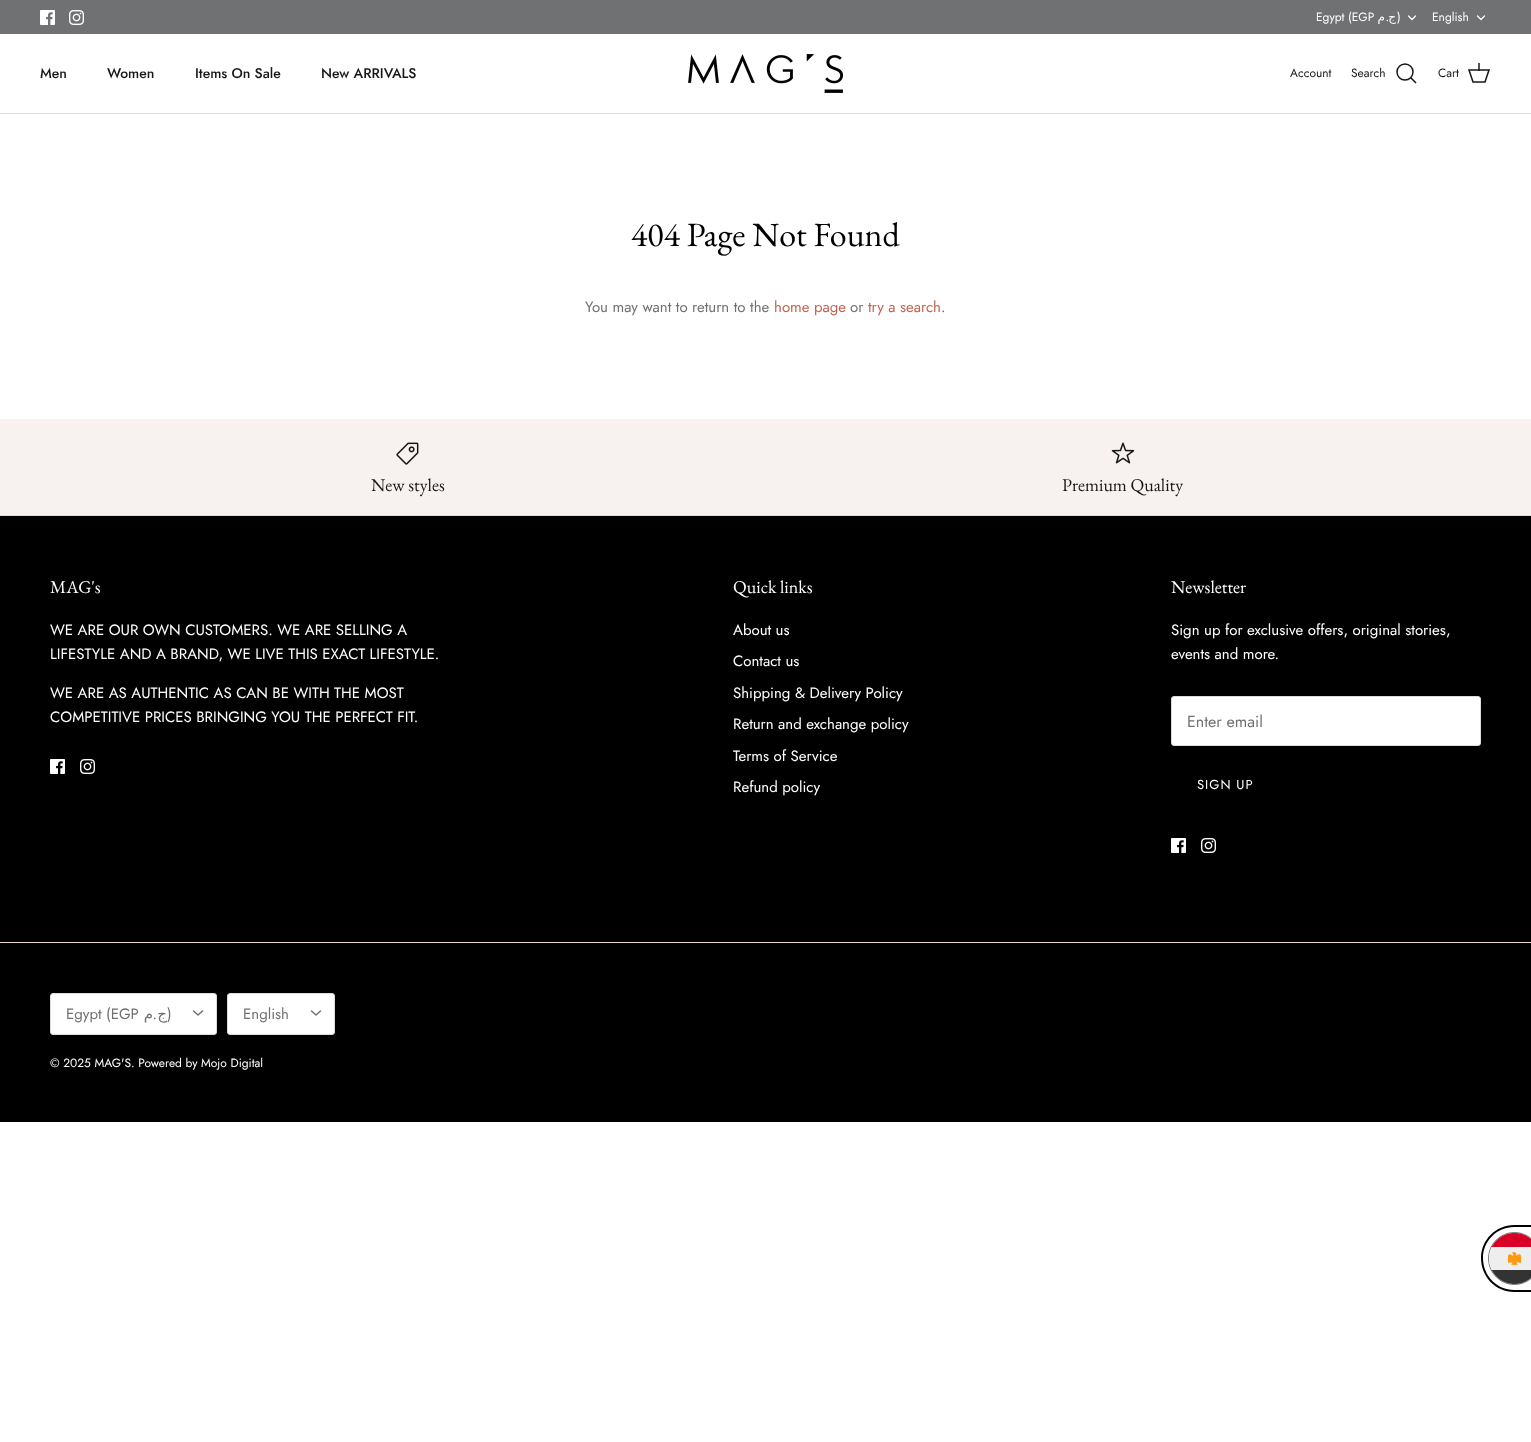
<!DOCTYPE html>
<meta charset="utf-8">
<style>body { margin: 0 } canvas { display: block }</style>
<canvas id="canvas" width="1531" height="1442"></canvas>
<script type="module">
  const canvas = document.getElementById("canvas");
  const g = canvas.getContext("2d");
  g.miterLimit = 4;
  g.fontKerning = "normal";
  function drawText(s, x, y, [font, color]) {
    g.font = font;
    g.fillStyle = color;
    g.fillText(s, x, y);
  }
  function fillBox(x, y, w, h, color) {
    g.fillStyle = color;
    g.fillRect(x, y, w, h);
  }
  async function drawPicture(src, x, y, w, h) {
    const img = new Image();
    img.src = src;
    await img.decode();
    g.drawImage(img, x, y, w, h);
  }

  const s1 = ["12px Jost", "#FFFFFF"];
  const s2 = ["12px DejaVu Sans", "#FFFFFF"];
  const s3 = ["500 14px Jost", "#171717"];
  const s4 = ["12px Jost", "#171717"];
  const s5 = ["34px EB Garamond", "#000000"];
  const s6 = ["15px Jost", "#707173"];
  const s7 = ["15px Jost", "#C16452"];
  const s8 = ["18px EB Garamond", "#171717"];
  const s9 = ["18px EB Garamond", "#FFFFFF"];
  const s10 = ["15px Jost", "#FFFFFF"];
  const s11 = ["16px Jost", "#707173"];
  const s12 = ["13px Jost", "#FFFFFF"];
  const s13 = ["15px DejaVu Sans", "#707173"];

  fillBox(0, 0, 1531, 1442, "#FFFFFF");
  fillBox(0, 0, 1531, 34, "#707173");
  await drawPicture("pic1.png", 40, 10, 15, 15);
  await drawPicture("pic2.png", 69, 10, 15, 15);
  drawText("Egypt (EGP", 1316, 21, s1);
  g.direction = "rtl";
  drawText("م", 1385, 21, s2);
  drawText(".", 1389, 21, s1);
  drawText("ج", 1396, 21, s2);
  g.direction = "ltr";
  drawText(")", 1397, 21, s1);
  g.beginPath();
  g.moveTo(1408.5, 16);
  g.lineTo(1412, 19.5);
  g.lineTo(1415.5, 16);
  g.strokeStyle = "#FFFFFF";
  g.lineWidth = 1.2;
  g.lineCap = "round";
  g.lineJoin = "round";
  g.stroke();
  drawText("English", 1432, 21, s1);
  g.beginPath();
  g.moveTo(1477.5, 16);
  g.lineTo(1481, 19.5);
  g.lineTo(1484.5, 16);
  g.stroke();
  fillBox(0, 113, 1531, 1, "#DFE3E8");
  drawText("Men", 40, 78, s3);
  drawText("Women", 107, 78, s3);
  drawText("Items On Sale", 195, 78, s3);
  drawText("New ARRIVALS", 321, 78, s3);
  await drawPicture("pic3.png", 688, 54, 155, 39);
  drawText("Account", 1290, 77, s4);
  drawText("Search", 1351, 77, s4);
  g.beginPath();
  g.arc(1405, 72, 8, 0, Math.PI * 2);
  g.strokeStyle = "#171717";
  g.lineWidth = 1.5;
  g.stroke();
  g.beginPath();
  g.moveTo(1411, 78);
  g.lineTo(1415.5, 82.5);
  g.lineCap = "square";
  g.lineJoin = "miter";
  g.stroke();
  drawText("Cart", 1438, 77, s4);
  g.beginPath();
  g.moveTo(1469, 70);
  g.lineTo(1489, 70);
  g.lineTo(1485, 82);
  g.lineTo(1473, 82);
  g.closePath();
  g.lineCap = "butt";
  g.stroke();
  fillBox(1478, 63, 2, 8, "rgba(23, 23, 23, 0.75)");
  drawText("404 Page Not Found", 631, 246, s5);
  drawText("You may want to return to the", 585, 312, s6);
  drawText("home page", 774, 312, s7);
  drawText("or", 850, 312, s6);
  drawText("try a search", 868, 312, s7);
  drawText(".", 941, 312, s6);
  fillBox(0, 516, 1531, 606, "#000000");
  fillBox(0, 419, 1531, 96, "#F7F1F0");
  await drawPicture("pic4.png", 396, 442, 23, 23);
  drawText("New styles", 371, 491, s8);
  await drawPicture("pic5.png", 1111, 442, 24, 22);
  drawText("Premium Quality", 1062, 491, s8);
  fillBox(0, 515, 1531, 1, "#ECD6D1");
  drawText("MAG's", 50, 593, s9);
  drawText("WE ARE OUR OWN CUSTOMERS. WE ARE SELLING A", 50, 635, s10);
  drawText("LIFESTYLE AND A BRAND, WE LIVE THIS EXACT LIFESTYLE.", 50, 659, s10);
  drawText("WE ARE AS AUTHENTIC AS CAN BE WITH THE MOST", 50, 698, s10);
  drawText("COMPETITIVE PRICES BRINGING YOU THE PERFECT FIT.", 50, 722, s10);
  await drawPicture("pic6.png", 50, 759, 15, 15);
  await drawPicture("pic7.png", 80, 759, 15, 15);
  drawText("Quick links", 733, 593, s9);
  drawText("About us", 733, 635, s10);
  drawText("Contact us", 733, 666, s10);
  drawText("Shipping & Delivery Policy", 733, 698, s10);
  drawText("Return and exchange policy", 733, 729, s10);
  drawText("Terms of Service", 733, 761, s10);
  drawText("Refund policy", 733, 792, s10);
  drawText("Newsletter", 1171, 593, s9);
  drawText("Sign up for exclusive offers, original stories,", 1171, 635, s10);
  drawText("events and more.", 1171, 659, s10);
  g.beginPath();
  g.roundRect(1171.5, 696.5, 309, 49, 2.5);
  g.fill();
  g.strokeStyle = "#DBDCDC";
  g.lineWidth = 1;
  g.stroke();
  drawText("Enter email", 1187, 727, s11);
  g.letterSpacing = "1px";
  drawText("SIGN UP", 1197, 789, s12);
  await drawPicture("pic6.png", 1171, 838, 15, 15);
  await drawPicture("pic7.png", 1201, 838, 15, 15);
  fillBox(0, 942, 1531, 1, "#ECD6D1");
  g.fillStyle = "#FFFFFF";
  g.beginPath();
  g.roundRect(50.5, 993.5, 166, 41, 2.5);
  g.fill();
  g.stroke();
  g.letterSpacing = "0px";
  drawText("Egypt (EGP", 66, 1019, s6);
  g.direction = "rtl";
  drawText("م", 153, 1019, s13);
  drawText(".", 157, 1019, s6);
  drawText("ج", 167, 1019, s13);
  g.direction = "ltr";
  drawText(")", 167, 1019, s6);
  g.beginPath();
  g.moveTo(193.5, 1011);
  g.lineTo(198, 1015);
  g.lineTo(202.5, 1011);
  g.strokeStyle = "#707173";
  g.lineWidth = 1.5;
  g.lineCap = "round";
  g.lineJoin = "round";
  g.stroke();
  g.fillStyle = "#FFFFFF";
  g.beginPath();
  g.roundRect(227.5, 993.5, 107, 41, 2.5);
  g.fill();
  g.strokeStyle = "#DBDCDC";
  g.lineWidth = 1;
  g.lineJoin = "miter";
  g.stroke();
  drawText("English", 243, 1019, s6);
  g.beginPath();
  g.moveTo(311.5, 1011);
  g.lineTo(316, 1015);
  g.lineTo(320.5, 1011);
  g.strokeStyle = "#707173";
  g.lineWidth = 1.5;
  g.lineJoin = "round";
  g.stroke();
  drawText("© 2025 MAG'S. Powered by Mojo Digital", 50, 1067, s1);
  g.fillStyle = "#000000";
  g.beginPath();
  g.moveTo(1514, 1225);
  g.lineTo(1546, 1225);
  g.lineTo(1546, 1292);
  g.lineTo(1514, 1292);
  g.bezierCurveTo(1496, 1292, 1481, 1277, 1481, 1258);
  g.bezierCurveTo(1481, 1240, 1496, 1225, 1514, 1225);
  g.closePath();
  g.moveTo(1514, 1227);
  g.lineTo(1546, 1227);
  g.lineTo(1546, 1290);
  g.lineTo(1514, 1290);
  g.bezierCurveTo(1497, 1290, 1483, 1276, 1483, 1258);
  g.bezierCurveTo(1483, 1241, 1497, 1227, 1514, 1227);
  g.closePath();
  g.fill("evenodd");
  g.beginPath();
  g.arc(1514.5, 1258.5, 26, 0, Math.PI * 2);
  g.lineWidth = 1;
  g.stroke();
  await drawPicture("pic8.png", 1489, 1233, 42, 51);
</script>
